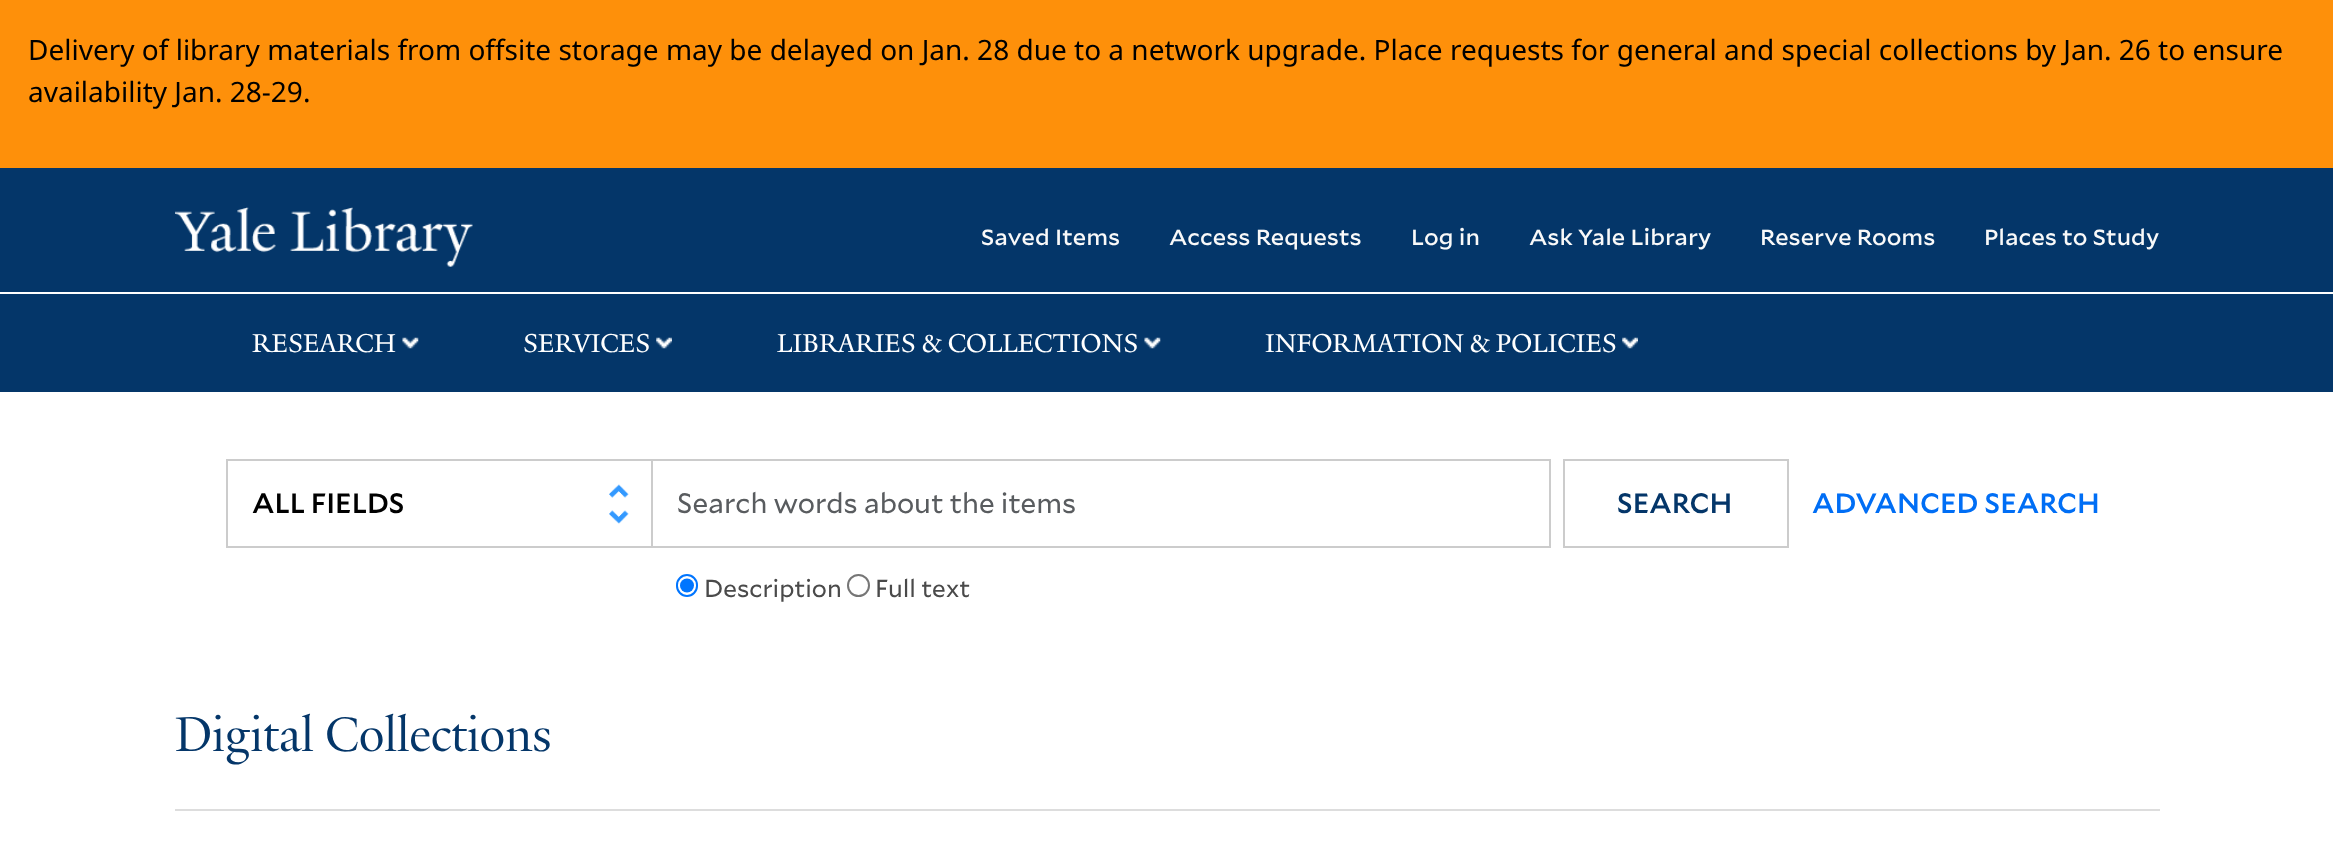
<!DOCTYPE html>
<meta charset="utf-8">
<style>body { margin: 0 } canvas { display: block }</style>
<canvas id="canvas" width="2333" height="842"></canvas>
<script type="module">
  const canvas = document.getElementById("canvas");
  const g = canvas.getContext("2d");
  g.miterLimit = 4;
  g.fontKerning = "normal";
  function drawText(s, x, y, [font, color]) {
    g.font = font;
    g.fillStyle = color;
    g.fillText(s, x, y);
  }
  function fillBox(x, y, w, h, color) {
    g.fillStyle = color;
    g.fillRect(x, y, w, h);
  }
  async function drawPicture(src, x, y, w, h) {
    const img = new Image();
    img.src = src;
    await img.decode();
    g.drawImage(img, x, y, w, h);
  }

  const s1 = ["28px Noto Sans", "#000000"];
  const s2 = ["500 21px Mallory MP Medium", "#F9F9F9"];
  const s3 = ["28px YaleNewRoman", "#FFFFFF"];
  const s4 = ["500 28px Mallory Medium", "#000000"];
  const s5 = ["28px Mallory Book", "#595C5F"];
  const s6 = ["500 28px Mallory Medium", "#043669"];
  const s7 = ["500 28px Mallory Medium", "#006EF5"];
  const s8 = ["24.5px Mallory Book", "#4A4A4A"];
  const s9 = ["52.5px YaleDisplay", "#043669"];

  fillBox(0, 0, 2333, 842, "#FFFFFF");
  fillBox(0, 0, 2333, 168, "#FE900A");
  drawText("Delivery of library materials from offsite storage may be delayed on Jan. 28 due to a network upgrade. Place requests for general and special collections by Jan. 26 to ensure", 28, 60, s1);
  drawText("availability Jan. 28-29.", 28, 102, s1);
  fillBox(0, 168, 2333, 124, "#043669");
  await drawPicture("pic1.png", 175, 207, 298, 60);
  drawText("Saved Items", 981, 245, s2);
  drawText("Access Requests", 1169, 245, s2);
  drawText("Log in", 1411, 245, s2);
  drawText("Ask Yale Library", 1529, 245, s2);
  drawText("Reserve Rooms", 1760, 245, s2);
  drawText("Places to Study", 1984, 245, s2);
  fillBox(0, 294, 2333, 98, "#043669");
  drawText("RESEARCH", 252, 352, s3);
  await drawPicture("pic2.png", 402, 337, 17, 12);
  drawText("SERVICES", 523, 352, s3);
  await drawPicture("pic3.png", 656, 337, 16, 12);
  drawText("LIBRARIES & COLLECTIONS", 777, 352, s3);
  await drawPicture("pic2.png", 1144, 337, 17, 12);
  drawText("INFORMATION & POLICIES", 1265, 352, s3);
  await drawPicture("pic3.png", 1622, 337, 16, 12);
  await drawPicture("pic4.png", 609, 484, 20, 40);
  g.strokeStyle = "#CCCCCC";
  g.lineWidth = 2;
  g.strokeRect(227, 460, 427, 87);
  drawText("ALL FIELDS", 252, 513, s4);
  fillBox(653, 461, 2, 85, "#FFFFFF");
  g.strokeRect(652, 460, 898, 87);
  drawText("Search words about the items", 677, 513, s5);
  g.strokeRect(1564, 460, 224, 87);
  drawText("SEARCH", 1617, 513, s6);
  drawText("ADVANCED SEARCH", 1812, 513, s7);
  g.beginPath();
  g.roundRect(677, 575, 20, 21, 10);
  g.strokeStyle = "#0075FF";
  g.stroke();
  g.fillStyle = "#0075FF";
  g.beginPath();
  g.arc(687, 585.5, 7, 0, Math.PI * 2);
  g.fill();
  drawText("Description", 704, 597, s8);
  g.beginPath();
  g.arc(858.5, 585.5, 10.5, 0, Math.PI * 2);
  g.strokeStyle = "#767676";
  g.stroke();
  drawText("Full text", 875, 597, s8);
  fillBox(175, 809, 1985, 2, "#DDDDDD");
  drawText("Digital Collections", 175, 751, s9);
</script>
